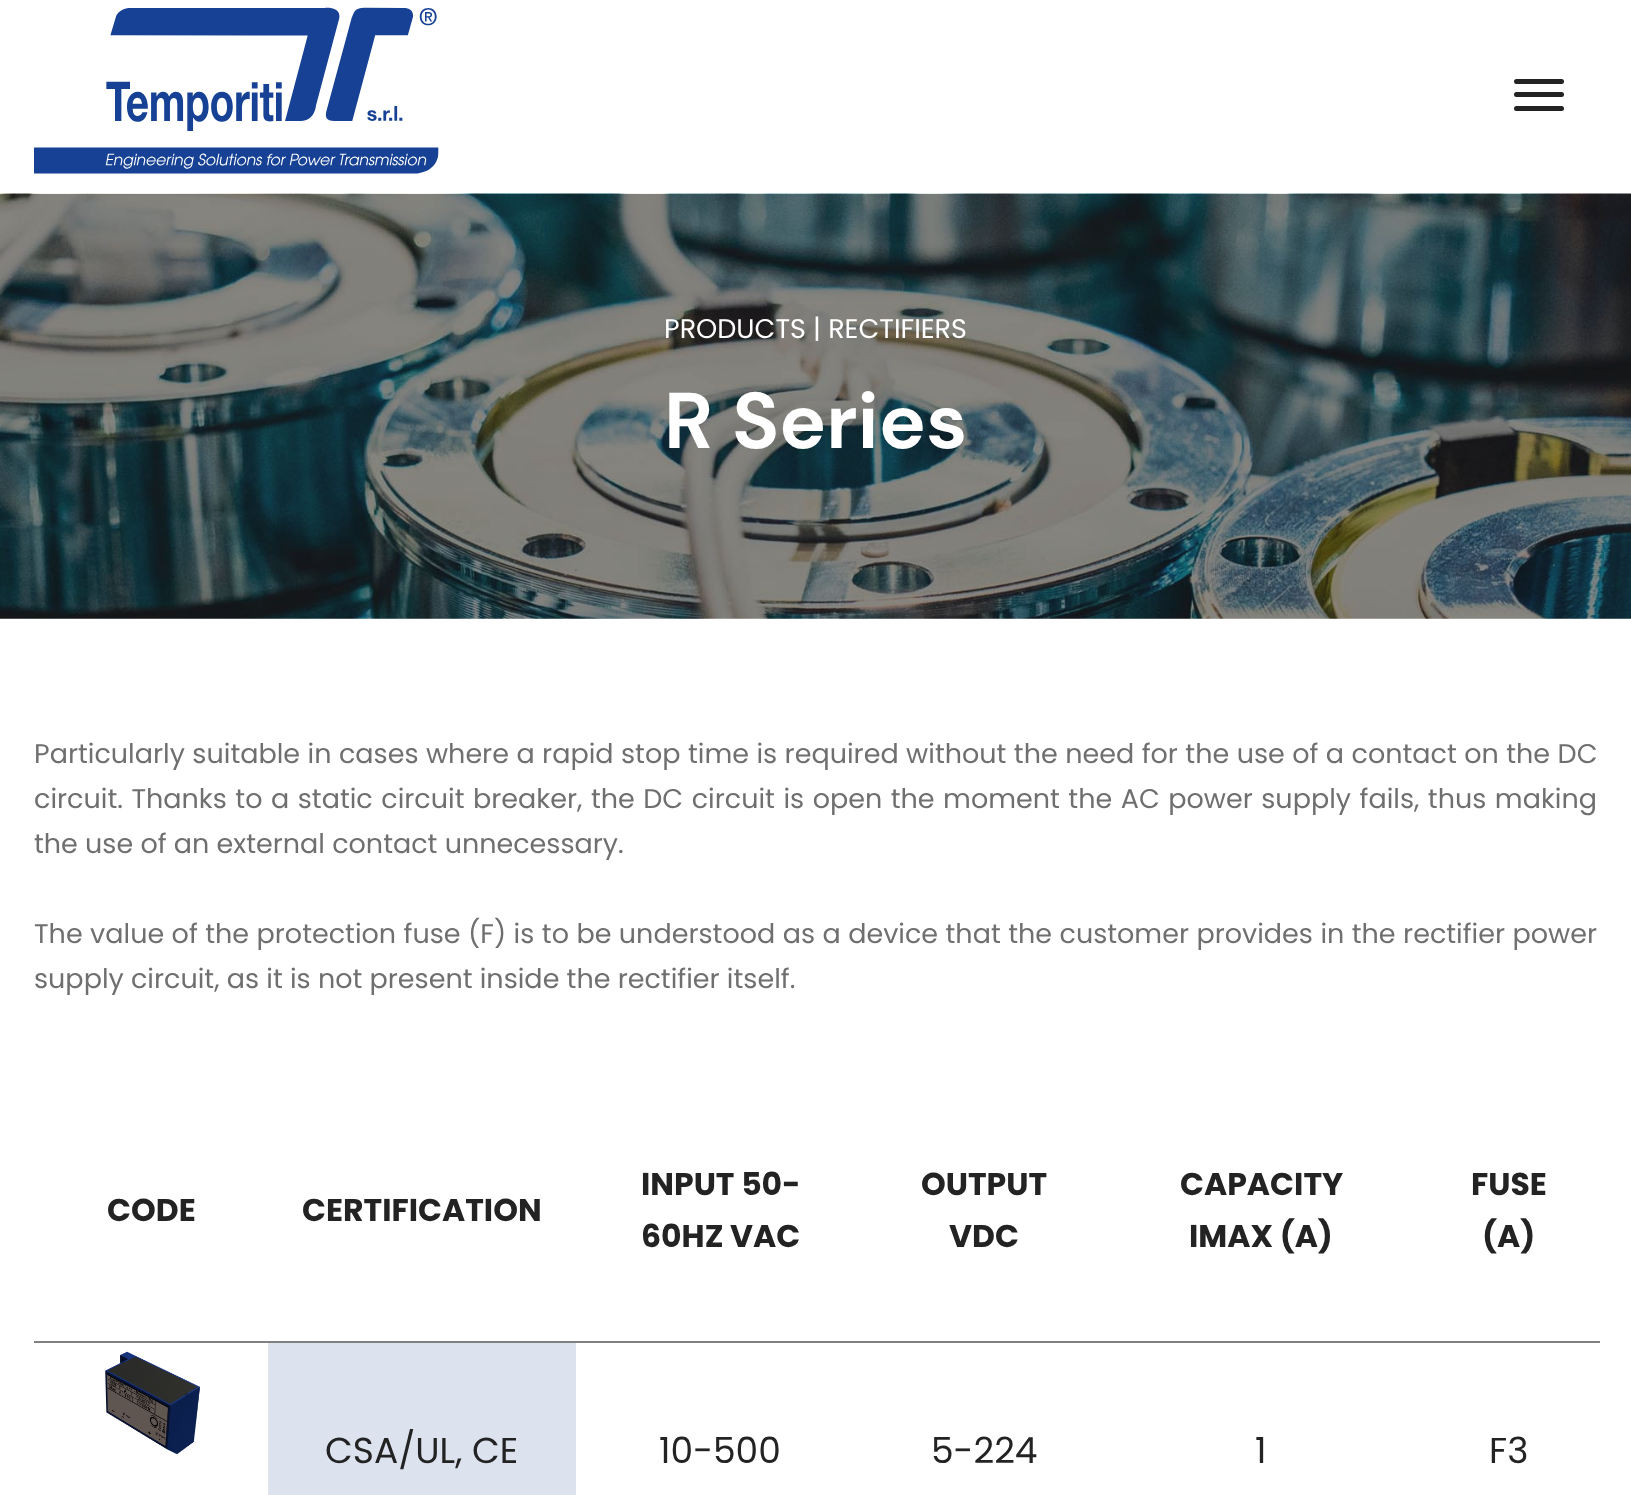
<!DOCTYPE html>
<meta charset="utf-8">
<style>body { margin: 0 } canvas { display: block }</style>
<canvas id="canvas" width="1631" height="1495"></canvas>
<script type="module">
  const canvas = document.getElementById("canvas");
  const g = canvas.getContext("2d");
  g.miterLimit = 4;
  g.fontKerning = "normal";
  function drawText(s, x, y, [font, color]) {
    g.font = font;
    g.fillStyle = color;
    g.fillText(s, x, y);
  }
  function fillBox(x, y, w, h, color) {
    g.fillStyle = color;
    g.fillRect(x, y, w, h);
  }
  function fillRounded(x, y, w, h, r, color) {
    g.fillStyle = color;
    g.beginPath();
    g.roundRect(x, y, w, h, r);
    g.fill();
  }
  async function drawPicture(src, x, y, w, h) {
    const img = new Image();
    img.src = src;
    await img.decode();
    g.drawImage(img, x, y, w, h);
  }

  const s1 = ["27px Poppins", "#FFFFFF"];
  const s2 = ["bold 79px DM Sans", "#FFFFFF"];
  const s3 = ["27px Poppins", "#6F6F6F"];
  const s4 = ["bold 31.5px Poppins", "#232323"];
  const s5 = ["36px Poppins", "#232323"];

  fillBox(0, 0, 1631, 1495, "#FFFFFF");
  await drawPicture("pic1.png", 34, 7, 405, 167);
  fillRounded(1514, 79, 50, 5, 2.5, "#232323");
  fillRounded(1514, 92, 50, 5, 2.5, "#232323");
  fillRounded(1514, 106, 50, 5, 2.5, "#232323");
  await drawPicture("pic2.png", 0, 193, 1631, 426);
  drawText("PRODUCTS | RECTIFIERS", 664, 338, s1);
  drawText("R Series", 664, 448, s2);
  g.wordSpacing = "0.25px";
  drawText("Particularly suitable in cases where a rapid stop time is required without the need for the use of a contact on the DC", 34, 763, s3);
  g.wordSpacing = "1.3px";
  drawText("circuit. Thanks to a static circuit breaker, the DC circuit is open the moment the AC power supply fails, thus making", 34, 808, s3);
  g.wordSpacing = "0px";
  drawText("the use of an external contact unnecessary.", 34, 853, s3);
  g.wordSpacing = "0.25px";
  drawText("The value of the protection fuse (F) is to be understood as a device that the customer provides in the rectifier power", 34, 943, s3);
  g.wordSpacing = "0px";
  drawText("supply circuit, as it is not present inside the rectifier itself.", 34, 988, s3);
  fillBox(34, 1341, 1566, 2, "#808080");
  drawText("CODE", 107, 1221, s4);
  drawText("CERTIFICATION", 302, 1221, s4);
  drawText("INPUT 50-", 641, 1195, s4);
  drawText("60HZ VAC", 641, 1247, s4);
  drawText("OUTPUT", 921, 1195, s4);
  drawText("VDC", 949, 1247, s4);
  drawText("CAPACITY", 1180, 1195, s4);
  drawText("IMAX (A)", 1189, 1247, s4);
  drawText("FUSE", 1471, 1195, s4);
  drawText("(A)", 1482, 1247, s4);
  await drawPicture("pic3.png", 105, 1351, 95, 104);
  fillBox(268, 1343, 308, 152, "#DCE3EF");
  drawText("CSA/UL, CE", 325, 1463, s5);
  drawText("10-500", 659, 1463, s5);
  drawText("5-224", 931, 1463, s5);
  drawText("1", 1255, 1463, s5);
  drawText("F3", 1489, 1463, s5);
</script>
